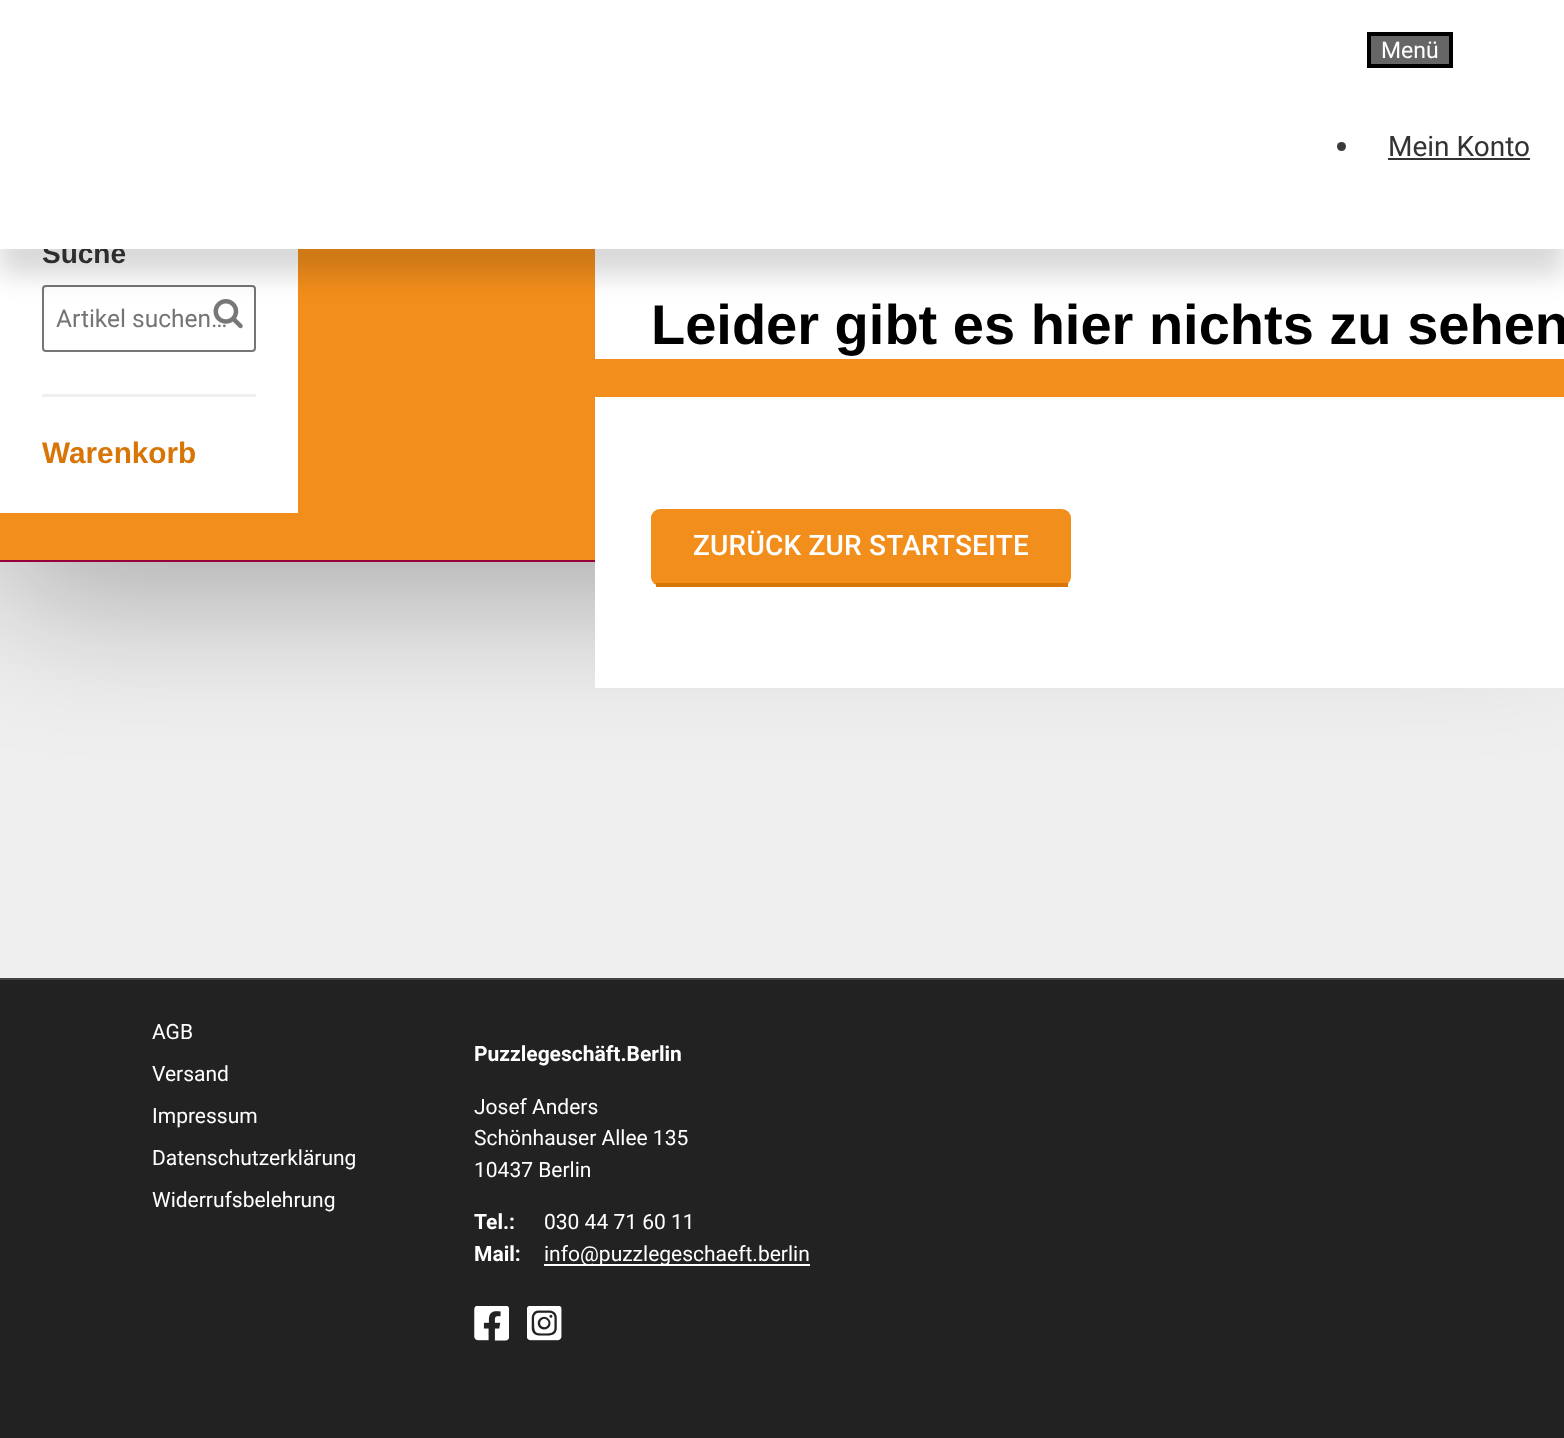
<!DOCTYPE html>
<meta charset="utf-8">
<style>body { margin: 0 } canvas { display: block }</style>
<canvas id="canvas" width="1564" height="1438"></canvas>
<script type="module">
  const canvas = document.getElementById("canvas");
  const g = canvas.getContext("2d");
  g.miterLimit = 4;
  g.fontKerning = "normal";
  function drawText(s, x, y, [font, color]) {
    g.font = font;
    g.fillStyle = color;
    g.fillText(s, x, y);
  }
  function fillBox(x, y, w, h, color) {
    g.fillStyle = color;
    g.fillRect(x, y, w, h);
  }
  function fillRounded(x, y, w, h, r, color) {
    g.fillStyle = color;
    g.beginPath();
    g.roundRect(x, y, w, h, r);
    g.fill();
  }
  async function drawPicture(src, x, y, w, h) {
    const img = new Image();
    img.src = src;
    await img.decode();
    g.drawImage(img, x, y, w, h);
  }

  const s1 = ["24.5px Roboto", "#757575"];
  const s2 = ["bold 28px Liberation Sans", "#2D2D2D"];
  const s3 = ["23px Roboto", "#FFFFFF"];
  const s4 = ["28px Roboto", "#333333"];
  const s5 = ["bold 29.75px Liberation Sans", "#D77606"];
  const s6 = ["bold 56px Liberation Sans", "#000000"];
  const s7 = ["500 28px Roboto", "#FFFFFF"];
  const s8 = ["21px Roboto", "#FFFFFF"];
  const s9 = ["bold 21px Roboto", "#FFFFFF"];

  fillBox(0, 0, 1564, 1438, "#EFEFEF");
  g.fillStyle = "rgba(0, 0, 0, 0.3)";
  g.filter = "blur(75px)";
  g.beginPath();
  g.rect(0, 33, 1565, 562);
  g.fill();
  g.filter = "none";
  fillBox(0, 249, 1564, 311, "#F28E1B");
  fillBox(0, 249, 298, 264, "#FFFFFF");
  g.beginPath();
  g.roundRect(43, 286, 212, 65, 3);
  g.strokeStyle = "#767676";
  g.lineWidth = 2;
  g.stroke();
  drawText("Artikel suchen…", 56, 327, s1);
  await drawPicture("pic1.png", 213, 299, 30, 30);
  fillBox(595, 249, 969, 110, "#FFFFFF");
  g.fillStyle = "rgba(0, 0, 0, 0.15)";
  g.filter = "blur(13px)";
  g.beginPath();
  g.rect(0, 26, 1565, 249);
  g.fill();
  g.filter = "none";
  drawText("Suche", 42, 263, s2);
  fillBox(0, 0, 1564, 249, "#FFFFFF");
  g.fillStyle = "#666666";
  g.beginPath();
  g.rect(1369, 34, 82, 32);
  g.fill();
  g.strokeStyle = "#000000";
  g.lineWidth = 4;
  g.stroke();
  drawText("Menü", 1381, 58, s3);
  g.fillStyle = "#3A3A3A";
  g.beginPath();
  g.arc(1341.5, 146.5, 4.5, 0, Math.PI * 2);
  g.fill();
  drawText("Mein Konto", 1388, 156, s4);
  fillBox(1388, 158, 142, 2, "#333333");
  fillBox(0, 560, 595, 2, "#95003D");
  fillBox(42, 394, 214, 3, "#EFEFEF");
  drawText("Warenkorb", 42, 463, s5);
  drawText("Leider gibt es hier nichts zu sehen", 651, 344, s6);
  fillBox(595, 397, 969, 291, "#FFFFFF");
  fillRounded(651, 509, 420, 77, 9, "#F28E1B");
  fillBox(656, 583, 412, 4, "#D77606");
  g.letterSpacing = "0.2px";
  drawText("ZURÜCK ZUR STARTSEITE", 693, 555, s7);
  fillBox(0, 980, 1564, 458, "#222222");
  fillBox(0, 978, 1564, 2, "#444444");
  g.letterSpacing = "0px";
  drawText("AGB", 152, 1039, s8);
  drawText("Versand", 152, 1081, s8);
  drawText("Impressum", 152, 1123, s8);
  drawText("Datenschutzerklärung", 152, 1165, s8);
  drawText("Widerrufsbelehrung", 152, 1207, s8);
  drawText("Puzzlegeschäft.Berlin", 474, 1061, s9);
  drawText("Josef Anders", 474, 1114, s8);
  drawText("Schönhauser Allee 135", 474, 1145, s8);
  drawText("10437 Berlin", 474, 1177, s8);
  drawText("Tel.:", 474, 1229, s9);
  drawText("030 44 71 60 11", 544, 1229, s8);
  drawText("Mail:", 474, 1261, s9);
  fillBox(544, 1264, 266, 2, "#FFFFFF");
  drawText("info@puzzlegeschaeft.berlin", 544, 1261, s8);
  await drawPicture("pic2.png", 474, 1306, 35, 35);
  await drawPicture("pic3.png", 527, 1306, 35, 35);
</script>
